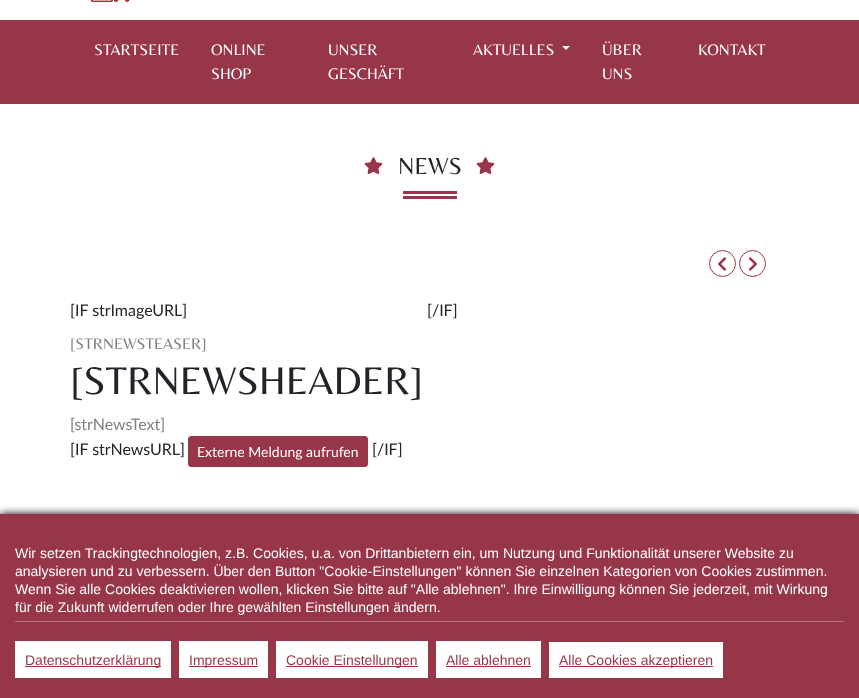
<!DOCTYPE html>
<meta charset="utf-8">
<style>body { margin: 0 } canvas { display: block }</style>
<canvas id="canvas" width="859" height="698"></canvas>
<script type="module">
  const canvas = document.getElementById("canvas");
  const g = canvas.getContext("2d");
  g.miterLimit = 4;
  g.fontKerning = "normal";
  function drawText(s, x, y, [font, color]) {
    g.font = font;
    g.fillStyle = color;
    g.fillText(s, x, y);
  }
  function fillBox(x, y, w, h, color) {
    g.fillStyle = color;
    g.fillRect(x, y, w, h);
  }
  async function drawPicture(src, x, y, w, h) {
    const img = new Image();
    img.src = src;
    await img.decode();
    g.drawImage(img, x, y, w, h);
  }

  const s1 = ["16px Belleza", "#FFFFFF"];
  const s2 = ["24px Belleza", "#212529"];
  const s3 = ["16px Lato", "#212529"];
  const s4 = ["16px Belleza", "#808080"];
  const s5 = ["40px Belleza", "#212529"];
  const s6 = ["16px Lato", "#808080"];
  const s7 = ["14px Lato", "#FFFFFF"];
  const s8 = ["14px Liberation Sans", "#FFFFFF"];
  const s9 = ["14px Liberation Sans", "#983649"];

  fillBox(0, 0, 859, 698, "#FFFFFF");
  await drawPicture("pic1.png", 90, 0, 40, 3);
  fillBox(0, 20, 859, 84, "#983649");
  drawText("STARTSEITE", 94, 55, s1);
  drawText("ONLINE", 211, 55, s1);
  drawText("SHOP", 211, 79, s1);
  drawText("UNSER", 328, 55, s1);
  drawText("GESCHÄFT", 328, 79, s1);
  drawText("AKTUELLES", 473, 55, s1);
  g.beginPath();
  g.moveTo(562, 46);
  g.lineTo(570, 46);
  g.lineTo(566, 50);
  g.closePath();
  g.fill();
  drawText("ÜBER", 602, 55, s1);
  drawText("UNS", 602, 79, s1);
  drawText("KONTAKT", 698, 55, s1);
  await drawPicture("pic2.png", 364, 157, 19, 18);
  drawText("NEWS", 398, 174, s2);
  await drawPicture("pic2.png", 476, 157, 19, 18);
  fillBox(403, 191, 54, 3, "#983649");
  fillBox(403, 196, 54, 3, "#983649");
  g.beginPath();
  g.arc(722.5, 263.5, 13, 0, Math.PI * 2);
  g.strokeStyle = "#983649";
  g.stroke();
  await drawPicture("pic3.png", 717, 257, 10, 14);
  g.beginPath();
  g.arc(752.5, 263.5, 13, 0, Math.PI * 2);
  g.stroke();
  await drawPicture("pic4.png", 748, 257, 10, 14);
  drawText("[IF strImageURL]", 70, 316, s3);
  drawText("[/IF]", 427, 316, s3);
  drawText("[STRNEWSTEASER]", 70, 349, s4);
  drawText("[STRNEWSHEADER]", 70, 394, s5);
  drawText("[strNewsText]", 70, 430, s6);
  drawText("[IF strNewsURL]", 70, 455, s3);
  g.fillStyle = "#983649";
  g.beginPath();
  g.roundRect(188.5, 436.5, 179, 30, 2.5);
  g.fill();
  g.stroke();
  drawText("Externe Meldung aufrufen", 197, 457, s7);
  drawText("[/IF]", 372, 455, s3);
  g.fillStyle = "#000000";
  g.filter = "blur(4px)";
  g.beginPath();
  g.rect(0, 514, 859, 184);
  g.fill();
  g.filter = "none";
  fillBox(0, 514, 859, 184, "#983649");
  fillBox(15, 621, 829, 1, "#B6707E");
  drawText("Wir setzen Trackingtechnologien, z.B. Cookies, u.a. von Drittanbietern ein, um Nutzung und Funktionalität unserer Website zu", 15, 558, s8);
  drawText("analysieren und zu verbessern. Über den Button \"Cookie-Einstellungen\" können Sie einzelnen Kategorien von Cookies zustimmen.", 15, 576, s8);
  drawText("Wenn Sie alle Cookies deaktivieren wollen, klicken Sie bitte auf \"Alle ablehnen\". Ihre Einwilligung können Sie jederzeit, mit Wirkung", 15, 594, s8);
  drawText("für die Zukunft widerrufen oder Ihre gewählten Einstellungen ändern.", 15, 612, s8);
  fillBox(15, 641, 156, 37, "#FFFFFF");
  fillBox(25, 666, 136, 1, "#983649");
  drawText("Datenschutzerklärung", 25, 665, s9);
  fillBox(179, 641, 89, 37, "#FFFFFF");
  fillBox(189, 666, 69, 1, "#983649");
  drawText("Impressum", 189, 665, s9);
  fillBox(276, 641, 152, 37, "#FFFFFF");
  fillBox(286, 666, 132, 1, "#983649");
  drawText("Cookie Einstellungen", 286, 665, s9);
  fillBox(436, 641, 105, 37, "#FFFFFF");
  drawText("Alle ablehnen", 446, 665, s9);
  fillBox(446, 666, 85, 1, "#983649");
  fillBox(549, 642, 174, 36, "#FFFFFF");
  fillBox(559, 666, 154, 1, "#983649");
  drawText("Alle Cookies akzeptieren", 559, 665, s9);
</script>
